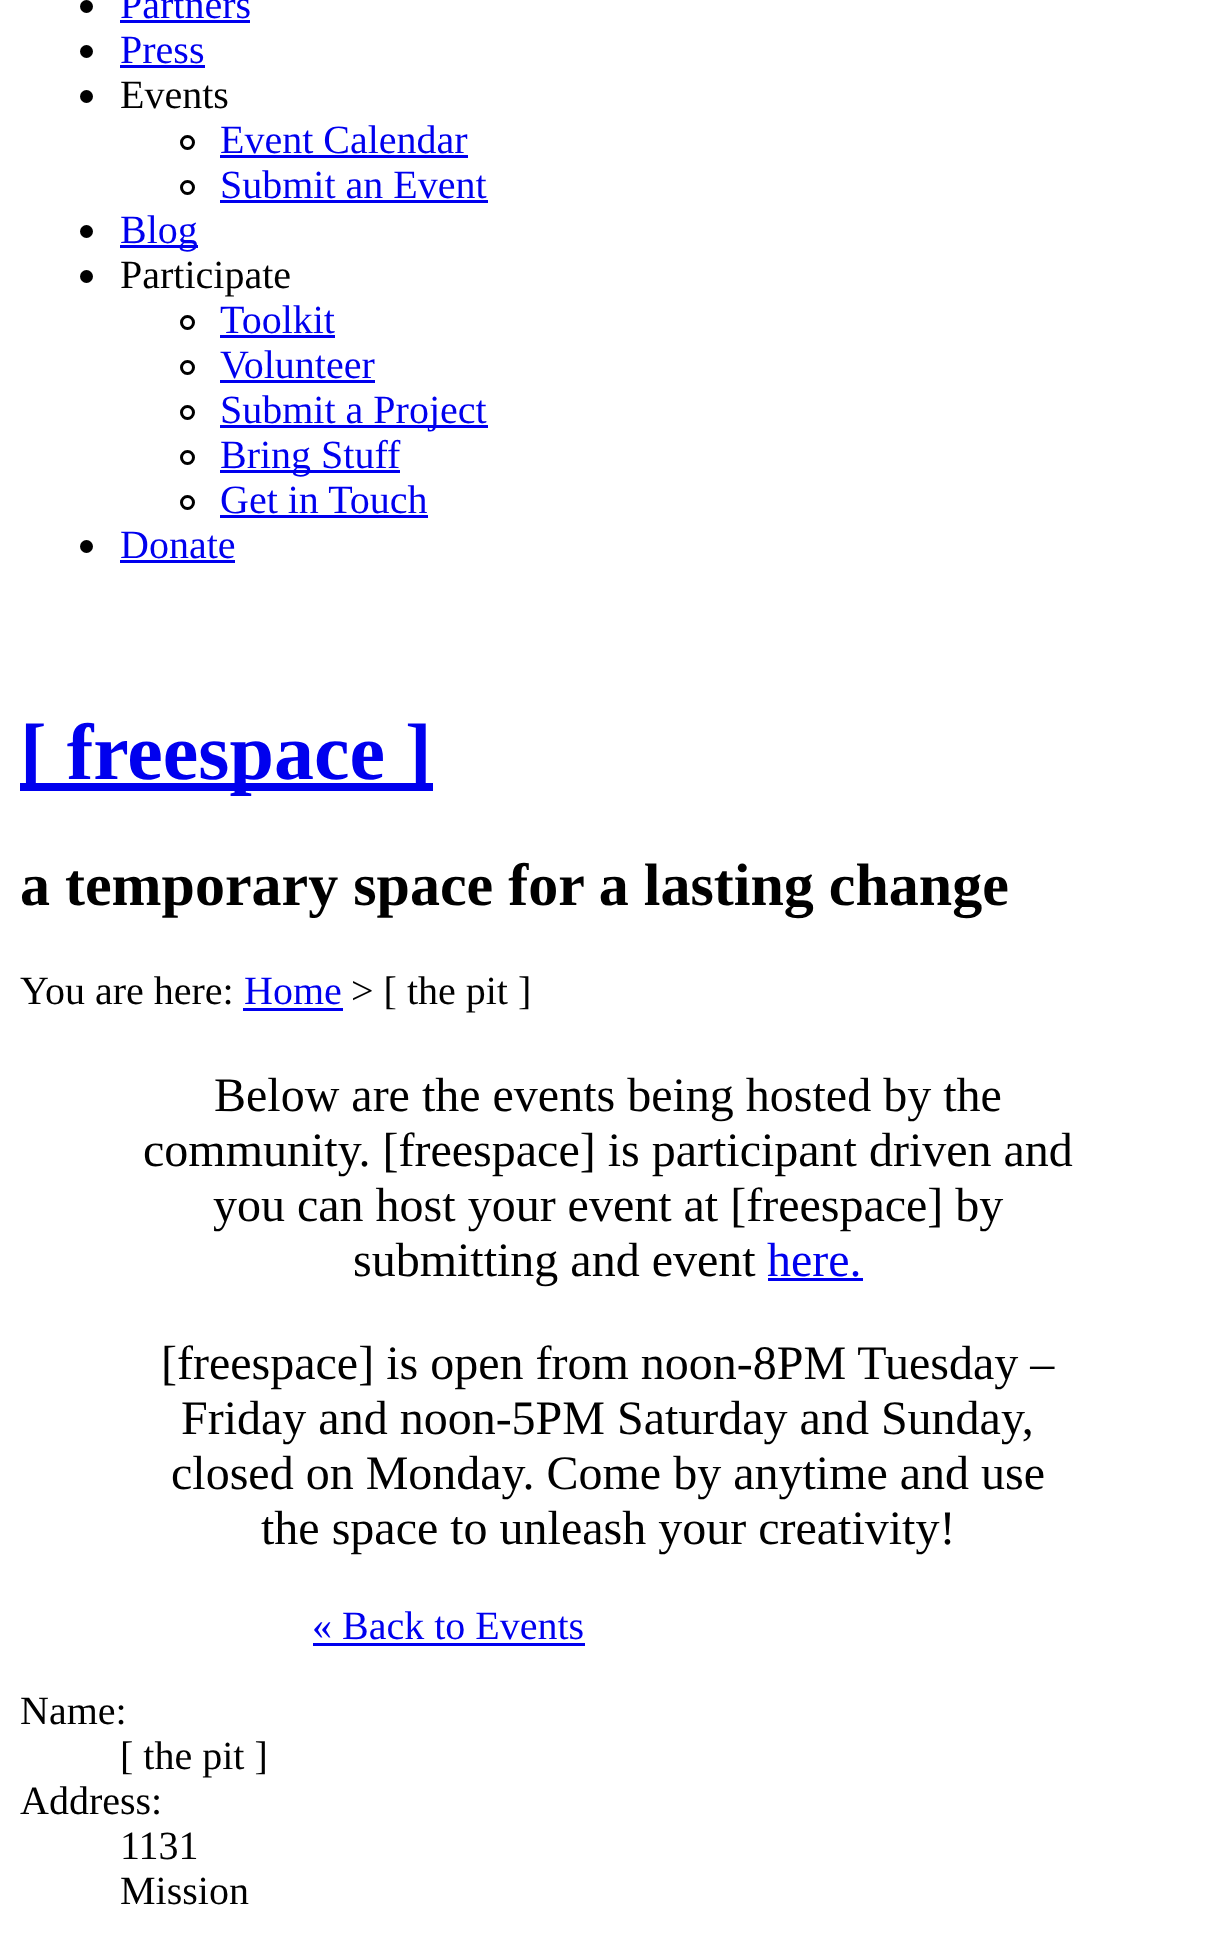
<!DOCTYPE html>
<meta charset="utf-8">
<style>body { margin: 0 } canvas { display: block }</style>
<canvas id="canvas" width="1215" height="1935"></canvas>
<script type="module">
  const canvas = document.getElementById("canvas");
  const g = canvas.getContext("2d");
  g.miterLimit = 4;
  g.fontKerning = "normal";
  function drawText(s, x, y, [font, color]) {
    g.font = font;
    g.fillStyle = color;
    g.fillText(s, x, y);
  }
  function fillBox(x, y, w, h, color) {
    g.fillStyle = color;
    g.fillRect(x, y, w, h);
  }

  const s1 = ["40px Liberation Serif", "#0000EE"];
  const s2 = ["40px Liberation Serif", "#000000"];
  const s3 = ["bold 80px Liberation Serif", "#0000EE"];
  const s4 = ["bold 60px Liberation Serif", "#000000"];
  const s5 = ["48px Liberation Serif", "#000000"];
  const s6 = ["48px Liberation Serif", "#0000EE"];

  fillBox(0, 0, 1215, 1935, "#FFFFFF");
  g.fillStyle = "#000000";
  g.beginPath();
  g.arc(86.5, 6.5, 6.5, 0, Math.PI * 2);
  g.fill();
  drawText("Partners", 120, 18, s1);
  fillBox(120, 20, 130, 3, "#0000EE");
  g.fillStyle = "#000000";
  g.beginPath();
  g.arc(86.5, 51.5, 6.5, 0, Math.PI * 2);
  g.fill();
  drawText("Press", 120, 63, s1);
  fillBox(120, 65, 85, 3, "#0000EE");
  g.fillStyle = "#000000";
  g.beginPath();
  g.arc(86.5, 96.5, 6.5, 0, Math.PI * 2);
  g.fill();
  drawText("Events", 120, 108, s2);
  g.beginPath();
  g.arc(187.5, 142.5, 6, 0, Math.PI * 2);
  g.strokeStyle = "#000000";
  g.lineWidth = 3;
  g.stroke();
  drawText("Event Calendar", 220, 153, s1);
  fillBox(220, 155, 248, 3, "#0000EE");
  g.beginPath();
  g.arc(187.5, 187.5, 6, 0, Math.PI * 2);
  g.stroke();
  drawText("Submit an Event", 220, 198, s1);
  fillBox(220, 200, 268, 3, "#0000EE");
  g.fillStyle = "#000000";
  g.beginPath();
  g.arc(86.5, 231.5, 6.5, 0, Math.PI * 2);
  g.fill();
  fillBox(120, 245, 78, 3, "#0000EE");
  drawText("Blog", 120, 243, s1);
  g.fillStyle = "#000000";
  g.beginPath();
  g.arc(86.5, 276.5, 6.5, 0, Math.PI * 2);
  g.fill();
  drawText("Participate", 120, 288, s2);
  g.beginPath();
  g.arc(187.5, 322.5, 6, 0, Math.PI * 2);
  g.stroke();
  drawText("Toolkit", 220, 333, s1);
  fillBox(220, 335, 115, 3, "#0000EE");
  g.beginPath();
  g.arc(187.5, 367.5, 6, 0, Math.PI * 2);
  g.stroke();
  drawText("Volunteer", 220, 378, s1);
  fillBox(220, 380, 155, 3, "#0000EE");
  g.beginPath();
  g.arc(187.5, 412.5, 6, 0, Math.PI * 2);
  g.stroke();
  fillBox(220, 425, 268, 3, "#0000EE");
  drawText("Submit a Project", 220, 423, s1);
  g.beginPath();
  g.arc(187.5, 457.5, 6, 0, Math.PI * 2);
  g.stroke();
  fillBox(220, 470, 180, 3, "#0000EE");
  drawText("Bring Stuff", 220, 468, s1);
  g.beginPath();
  g.arc(187.5, 502.5, 6, 0, Math.PI * 2);
  g.stroke();
  drawText("Get in Touch", 220, 513, s1);
  fillBox(220, 515, 208, 3, "#0000EE");
  g.fillStyle = "#000000";
  g.beginPath();
  g.arc(86.5, 546.5, 6.5, 0, Math.PI * 2);
  g.fill();
  drawText("Donate", 120, 558, s1);
  fillBox(120, 560, 115, 3, "#0000EE");
  fillBox(20, 783, 413, 8, "#0000EE");
  drawText("[ freespace ]", 20, 779, s3);
  drawText("a temporary space for a lasting change", 20, 905, s4);
  drawText("You are here:", 20, 1004, s2);
  drawText("Home", 244, 1004, s1);
  fillBox(243, 1008, 100, 3, "#0000EE");
  drawText("> [ the pit ]", 351, 1004, s2);
  drawText("Below are the events being hosted by the", 214, 1111, s5);
  drawText("community. [freespace] is participant driven and", 143, 1166, s5);
  drawText("you can host your event at [freespace] by", 213, 1221, s5);
  drawText("submitting and event", 353, 1276, s5);
  drawText("here.", 767, 1276, s6);
  fillBox(768, 1278, 95, 3, "#0000EE");
  drawText("[freespace] is open from noon-8PM Tuesday –", 161, 1379, s5);
  drawText("Friday and noon-5PM Saturday and Sunday,", 181, 1434, s5);
  drawText("closed on Monday. Come by anytime and use", 171, 1489, s5);
  drawText("the space to unleash your creativity!", 261, 1544, s5);
  drawText("« Back to Events", 312, 1639, s1);
  fillBox(313, 1643, 272, 3, "#0000EE");
  drawText("Name:", 20, 1724, s2);
  drawText("[ the pit ]", 120, 1769, s2);
  drawText("Address:", 20, 1814, s2);
  drawText("1131", 120, 1859, s2);
  drawText("Mission", 120, 1904, s2);
</script>
